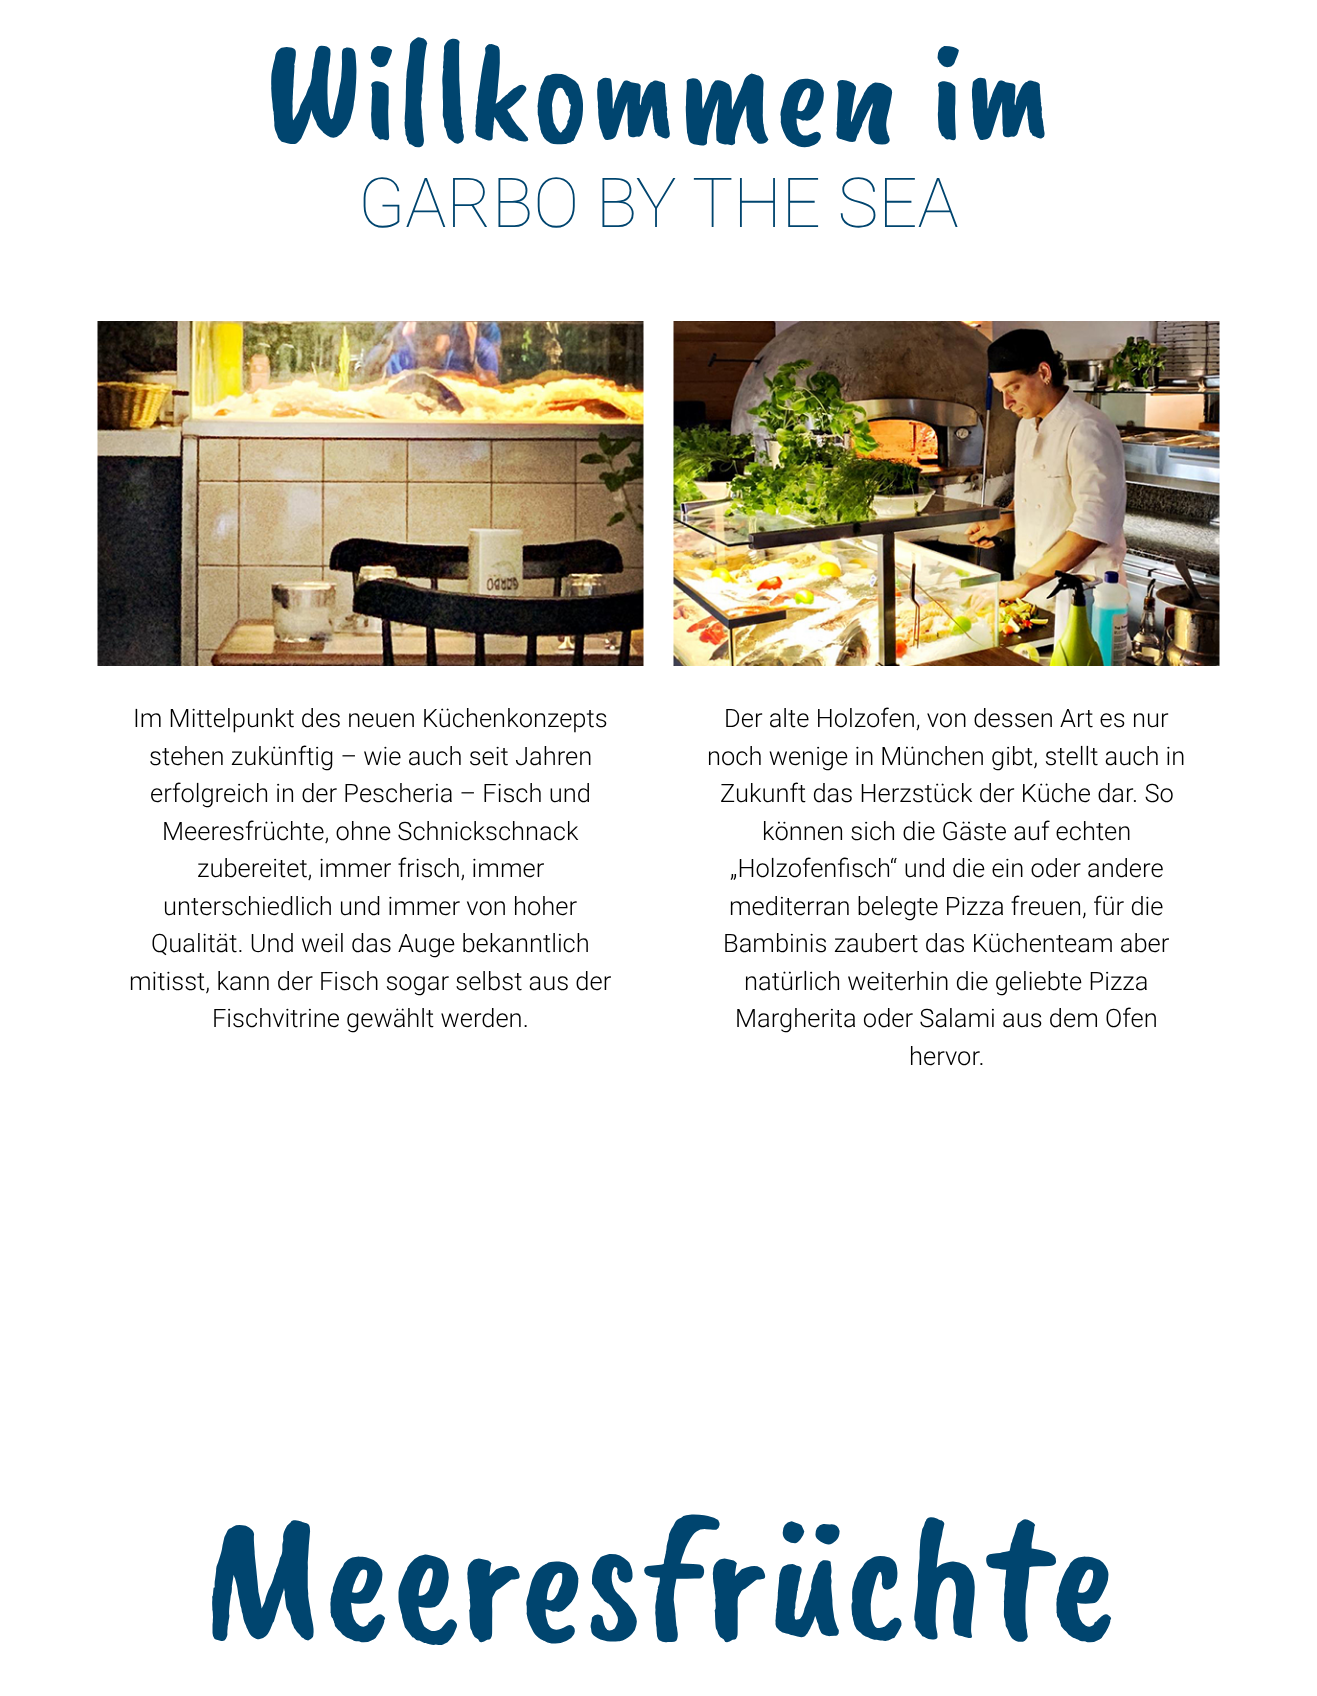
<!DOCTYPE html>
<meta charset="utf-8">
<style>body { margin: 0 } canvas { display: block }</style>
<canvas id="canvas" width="1317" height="1696"></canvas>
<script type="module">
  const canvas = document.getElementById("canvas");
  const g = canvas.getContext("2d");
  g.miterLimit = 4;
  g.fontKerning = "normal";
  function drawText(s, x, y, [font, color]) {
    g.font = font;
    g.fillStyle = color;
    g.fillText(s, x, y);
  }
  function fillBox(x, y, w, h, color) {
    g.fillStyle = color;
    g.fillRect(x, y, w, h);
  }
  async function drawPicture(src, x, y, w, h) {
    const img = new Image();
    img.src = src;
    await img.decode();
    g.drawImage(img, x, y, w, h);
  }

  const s1 = ["150px Caveat Brush", "#00456F"];
  const s2 = ["100 69px Roboto", "#00456F"];
  const s3 = ["300 25.5px Roboto", "#000000"];
  const s4 = ["180px Caveat Brush", "#00456F"];

  fillBox(0, 0, 1317, 1696, "#FFFFFF");
  drawText("Willkommen im", 264, 140, s1);
  drawText("GARBO BY THE SEA", 358, 227, s2);
  await drawPicture("pic1.png", 97, 321, 547, 345);
  drawText("Im Mittelpunkt des neuen Küchenkonzepts", 133, 727, s3);
  drawText("stehen zukünftig – wie auch seit Jahren", 149, 765, s3);
  drawText("erfolgreich in der Pescheria – Fisch und", 150, 802, s3);
  drawText("Meeresfrüchte, ohne Schnickschnack", 162, 840, s3);
  drawText("zubereitet, immer frisch, immer", 197, 877, s3);
  drawText("unterschiedlich und immer von hoher", 163, 915, s3);
  drawText("Qualität. Und weil das Auge bekanntlich", 151, 952, s3);
  drawText("mitisst, kann der Fisch sogar selbst aus der", 129, 990, s3);
  drawText("Fischvitrine gewählt werden.", 212, 1027, s3);
  await drawPicture("pic2.png", 673, 321, 547, 345);
  drawText("Der alte Holzofen, von dessen Art es nur", 724, 727, s3);
  drawText("noch wenige in München gibt, stellt auch in", 707, 765, s3);
  drawText("Zukunft das Herzstück der Küche dar. So", 720, 802, s3);
  drawText("können sich die Gäste auf echten", 762, 840, s3);
  drawText("„Holzofenfisch“ und die ein oder andere", 730, 877, s3);
  drawText("mediterran belegte Pizza freuen, für die", 729, 915, s3);
  drawText("Bambinis zaubert das Küchenteam aber", 723, 952, s3);
  drawText("natürlich weiterhin die geliebte Pizza", 744, 990, s3);
  drawText("Margherita oder Salami aus dem Ofen", 735, 1027, s3);
  drawText("hervor.", 909, 1065, s3);
  drawText("Meeresfrüchte", 201, 1635, s4);
</script>
